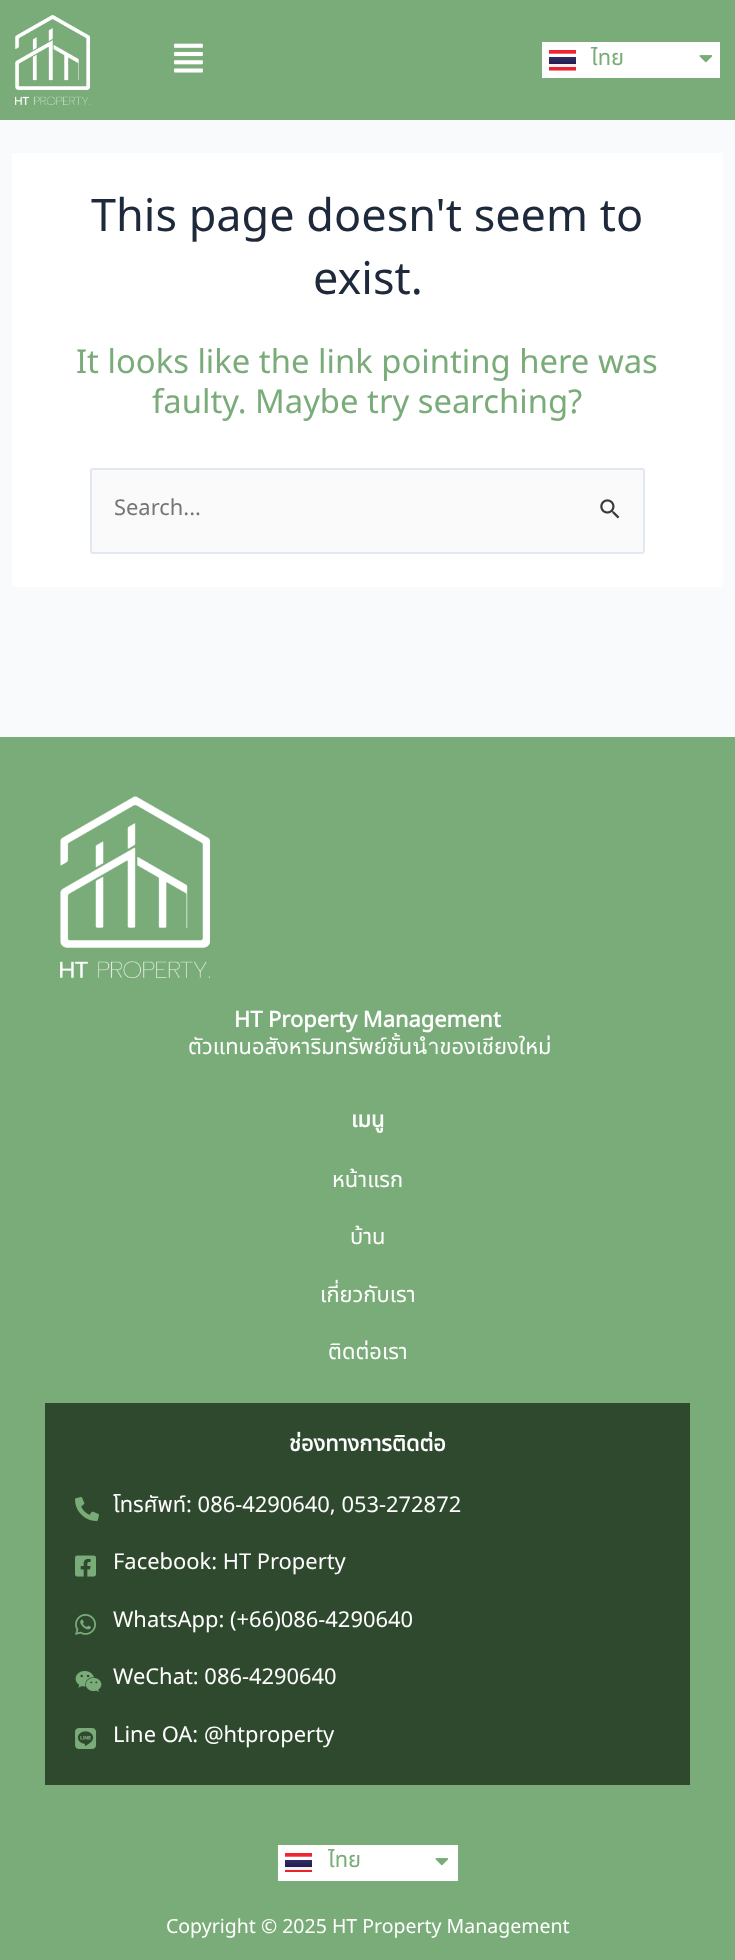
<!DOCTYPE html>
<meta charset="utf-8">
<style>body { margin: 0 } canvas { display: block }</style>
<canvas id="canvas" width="735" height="1960"></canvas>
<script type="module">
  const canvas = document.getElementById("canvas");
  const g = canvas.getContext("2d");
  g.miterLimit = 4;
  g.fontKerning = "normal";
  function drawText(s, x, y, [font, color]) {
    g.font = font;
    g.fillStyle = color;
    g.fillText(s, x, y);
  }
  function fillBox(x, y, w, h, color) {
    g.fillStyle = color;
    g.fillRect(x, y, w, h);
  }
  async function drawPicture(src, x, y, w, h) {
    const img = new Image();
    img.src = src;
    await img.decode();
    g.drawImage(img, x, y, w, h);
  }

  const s1 = ["21.9px Noto Sans Thai", "#79AC78"];
  const s2 = ["45px Noto Sans Thai", "#1E293B"];
  const s3 = ["32.8px Noto Sans Thai", "#79AC78"];
  const s4 = ["21.9px Noto Sans Thai", "#757575"];
  const s5 = ["bold 21.9px Noto Sans Thai", "#FFFFFF"];
  const s6 = ["21.9px Noto Sans Thai", "#FFFFFF"];
  const s7 = ["19.5px Noto Sans Thai", "#FFFFFF"];

  fillBox(0, 0, 735, 1960, "#F9FAFB");
  fillBox(0, 0, 735, 120, "#79AC78");
  await drawPicture("pic1.png", 15, 15, 75, 90);
  await drawPicture("pic2.png", 174, 43, 29, 30);
  fillBox(542, 42, 178, 36, "#FFFFFF");
  await drawPicture("pic3.png", 549, 50, 27, 21);
  drawText("ไทย", 591, 65, s1);
  await drawPicture("pic4.png", 699, 55, 14, 8);
  fillBox(12, 153, 711, 434, "#FFFFFF");
  drawText("This page doesn't seem to", 91, 231, s2);
  drawText("exist.", 313, 294, s2);
  drawText("It looks like the link pointing here was", 76, 373, s3);
  drawText("faulty. Maybe try searching?", 152, 413, s3);
  g.fillStyle = "#FAFAFA";
  g.beginPath();
  g.roundRect(91, 469, 553, 84, 2);
  g.fill();
  g.strokeStyle = "#E2E8F0";
  g.lineWidth = 2;
  g.stroke();
  drawText("Search...", 114, 515, s4);
  await drawPicture("pic5.png", 600, 499, 20, 20);
  fillBox(0, 737, 735, 1223, "#79AC78");
  await drawPicture("pic6.png", 60, 796, 150, 182);
  drawText("HT Property Management", 234, 1027, s5);
  drawText("ตัวแทนอสังหาริมทรัพย์ชั้นนำของเชียงใหม่", 188, 1054, s6);
  drawText("เมนู", 351, 1127, s5);
  drawText("หน้าแรก", 332, 1187, s6);
  drawText("บ้าน", 350, 1244, s6);
  drawText("เกี่ยวกับเรา", 320, 1302, s6);
  drawText("ติดต่อเรา", 328, 1359, s6);
  fillBox(45, 1403, 645, 382, "#2F492F");
  drawText("ช่องทางการติดต่อ", 289, 1451, s5);
  await drawPicture("pic7.png", 75, 1497, 24, 24);
  drawText("โทรศัพท์: 086-4290640, 053-272872", 113, 1512, s6);
  await drawPicture("pic8.png", 75, 1555, 21, 22);
  drawText("Facebook: HT Property", 113, 1569, s6);
  await drawPicture("pic9.png", 75, 1614, 21, 21);
  drawText("WhatsApp: (+66)086-4290640", 113, 1627, s6);
  await drawPicture("pic10.png", 75, 1671, 27, 21);
  drawText("WeChat: 086-4290640", 113, 1684, s6);
  await drawPicture("pic11.png", 75, 1728, 22, 21);
  drawText("Line OA: @htproperty", 113, 1742, s6);
  fillBox(278, 1845, 180, 36, "#FFFFFF");
  await drawPicture("pic12.png", 285, 1853, 27, 19);
  drawText("ไทย", 328, 1867, s1);
  await drawPicture("pic4.png", 435, 1858, 14, 8);
  drawText("Copyright © 2025 HT Property Management", 166, 1933, s7);
</script>
